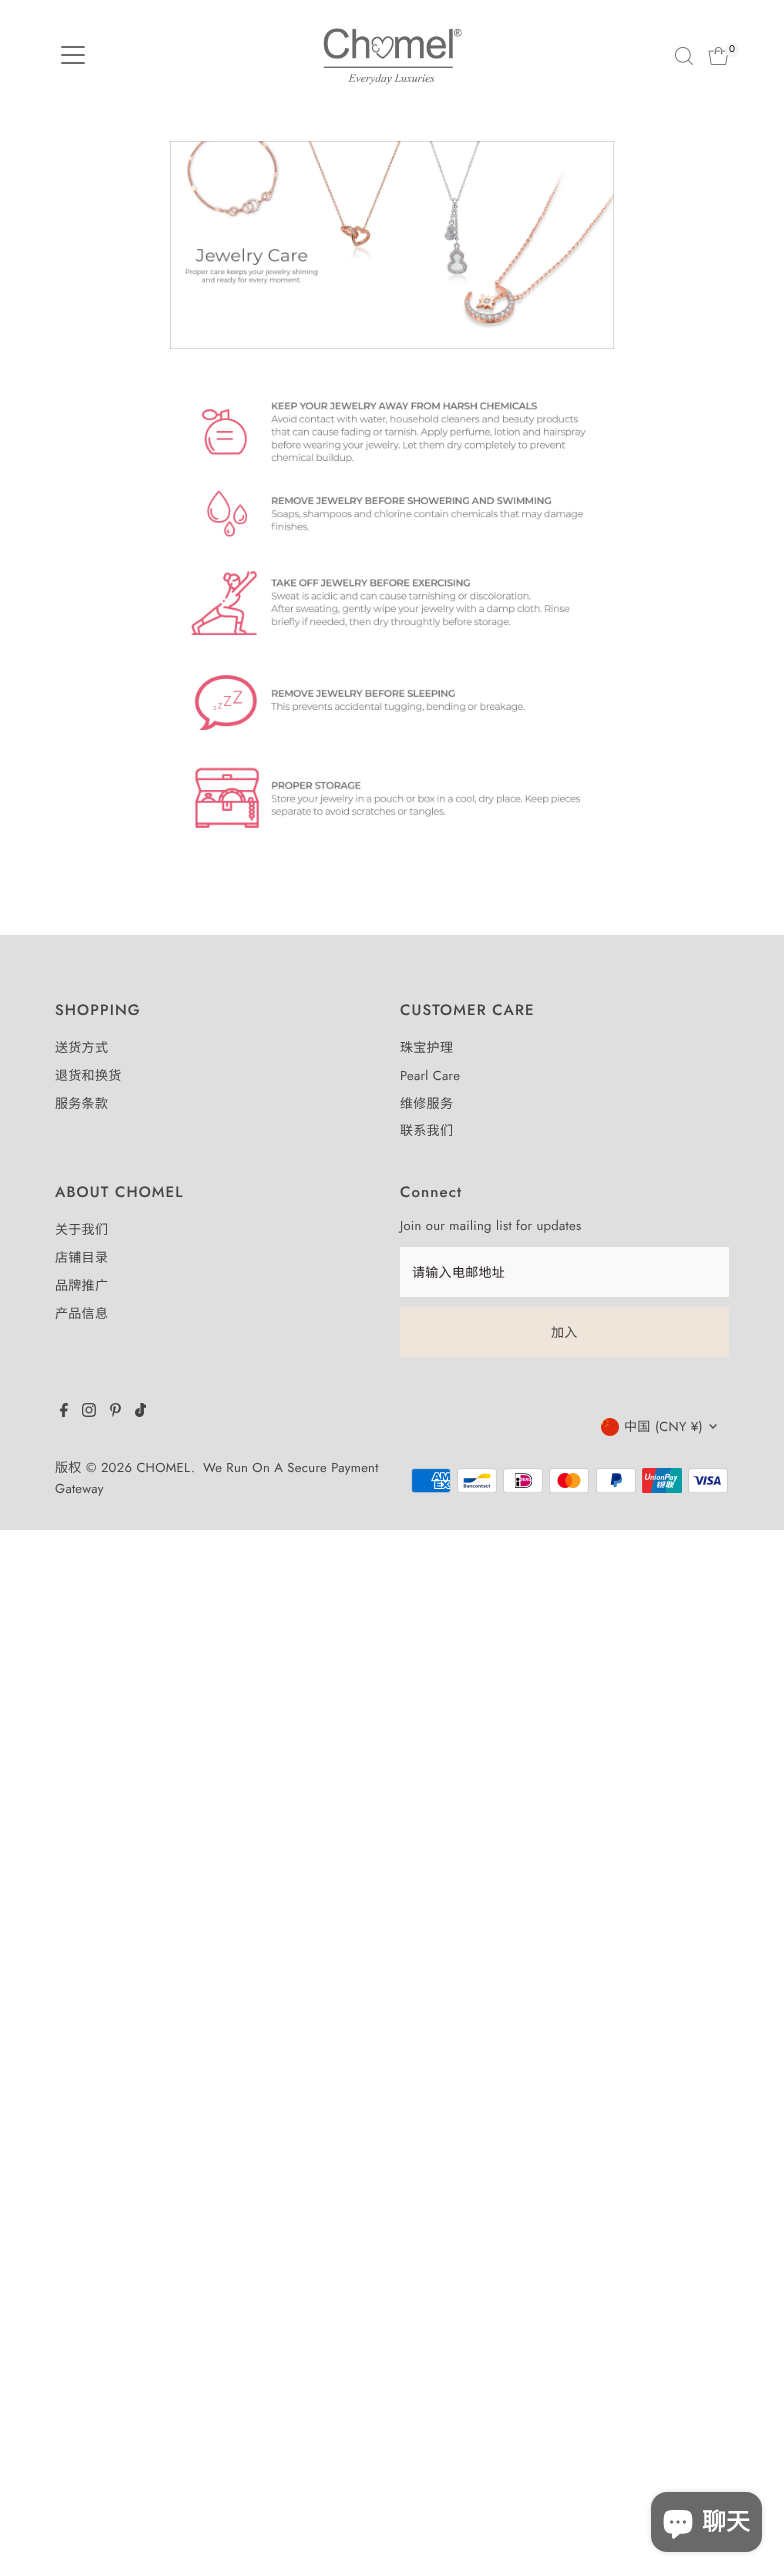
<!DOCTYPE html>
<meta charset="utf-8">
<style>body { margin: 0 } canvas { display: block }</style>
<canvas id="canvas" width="784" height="2573"></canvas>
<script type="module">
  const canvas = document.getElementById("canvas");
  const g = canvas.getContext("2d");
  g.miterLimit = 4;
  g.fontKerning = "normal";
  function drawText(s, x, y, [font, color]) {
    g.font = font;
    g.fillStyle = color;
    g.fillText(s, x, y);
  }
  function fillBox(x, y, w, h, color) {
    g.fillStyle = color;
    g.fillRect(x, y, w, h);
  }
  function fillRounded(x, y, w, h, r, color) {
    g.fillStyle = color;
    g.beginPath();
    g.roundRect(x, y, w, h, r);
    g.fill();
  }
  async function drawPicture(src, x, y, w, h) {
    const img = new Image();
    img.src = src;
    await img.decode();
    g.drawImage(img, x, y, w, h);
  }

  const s1 = ["10px Jost", "#000000"];
  const s2 = ["500 15px Jost", "#454545"];
  const s3 = ["13px Noto Sans CJK SC", "#454545"];
  const s4 = ["13px Jost", "#454545"];
  const s5 = ["13px Noto Sans CJK SC", "#261C1C"];
  const s6 = ["bold 24px Noto Sans CJK SC", "#FFFFFF"];

  fillBox(0, 0, 784, 2573, "#FFFFFF");
  await drawPicture("pic1.png", 61, 46, 24, 18);
  await drawPicture("pic2.png", 323, 28, 139, 57);
  await drawPicture("pic3.png", 675, 47, 18, 18);
  await drawPicture("pic4.png", 708, 47, 20, 18);
  g.fillStyle = "#F5F5F5";
  g.beginPath();
  g.arc(732, 50, 7, 0, Math.PI * 2);
  g.fill();
  g.letterSpacing = "0.3px";
  drawText("0", 729, 52, s1);
  await drawPicture("pic5.png", 170, 141, 444, 208);
  await drawPicture("pic6.png", 191, 402, 395, 428);
  fillBox(0, 936, 784, 594, "#DFDFDF");
  fillBox(0, 935, 784, 1, "#DDDDDD");
  g.letterSpacing = "1.1px";
  drawText("SHOPPING", 55, 1015, s2);
  g.letterSpacing = "0.3px";
  drawText("送货方式", 55, 1052, s3);
  drawText("退货和换货", 55, 1080, s3);
  drawText("服务条款", 55, 1108, s3);
  g.letterSpacing = "1.1px";
  drawText("CUSTOMER CARE", 400, 1015, s2);
  g.letterSpacing = "0.3px";
  drawText("珠宝护理", 400, 1052, s3);
  drawText("Pearl Care", 400, 1080, s4);
  drawText("维修服务", 400, 1108, s3);
  drawText("联系我们", 400, 1135, s3);
  g.letterSpacing = "1.1px";
  drawText("ABOUT CHOMEL", 55, 1197, s2);
  g.letterSpacing = "0.3px";
  drawText("关于我们", 55, 1234, s3);
  drawText("店铺目录", 55, 1262, s3);
  drawText("品牌推广", 55, 1290, s3);
  drawText("产品信息", 55, 1318, s3);
  g.letterSpacing = "1.1px";
  drawText("Connect", 400, 1197, s2);
  g.letterSpacing = "0.3px";
  drawText("Join our mailing list for updates", 400, 1230, s4);
  fillBox(400, 1247, 329, 50, "#F9F9F9");
  drawText("请输入电邮地址", 412, 1277, s5);
  fillRounded(400, 1307, 329, 50, 3, "#EFE5DA");
  drawText("加入", 551, 1337, s3);
  await drawPicture("pic7.png", 601, 1418, 18, 18);
  drawText("中国", 624, 1431, s3);
  drawText("(CNY ¥)", 655, 1431, s4);
  await drawPicture("pic8.png", 709, 1424, 8, 5);
  await drawPicture("pic9.png", 411, 1468, 40, 25);
  await drawPicture("pic10.png", 457, 1468, 40, 25);
  await drawPicture("pic11.png", 503, 1468, 40, 25);
  await drawPicture("pic12.png", 549, 1468, 40, 25);
  await drawPicture("pic13.png", 596, 1468, 40, 25);
  await drawPicture("pic14.png", 642, 1468, 40, 25);
  await drawPicture("pic15.png", 688, 1468, 40, 25);
  await drawPicture("pic16.png", 60, 1403, 8, 14);
  await drawPicture("pic17.png", 82, 1403, 14, 14);
  await drawPicture("pic18.png", 110, 1403, 11, 14);
  await drawPicture("pic19.png", 135, 1403, 11, 14);
  drawText("版权", 55, 1472, s3);
  drawText("© 2026 CHOMEL", 86, 1472, s4);
  drawText(".", 191, 1472, s4);
  drawText("We Run On A Secure Payment", 203, 1472, s4);
  drawText("Gateway", 55, 1493, s4);
  g.fillStyle = "rgba(0, 0, 0, 0.15)";
  g.filter = "blur(2.5px)";
  g.beginPath();
  g.roundRect(651, 2492, 111, 60, 16);
  g.fill();
  g.filter = "none";
  fillRounded(651, 2492, 111, 60, 16, "#696969");
  await drawPicture("pic20.png", 663, 2510, 30, 29);
  g.letterSpacing = "0px";
  drawText("聊天", 702, 2530, s6);
</script>
